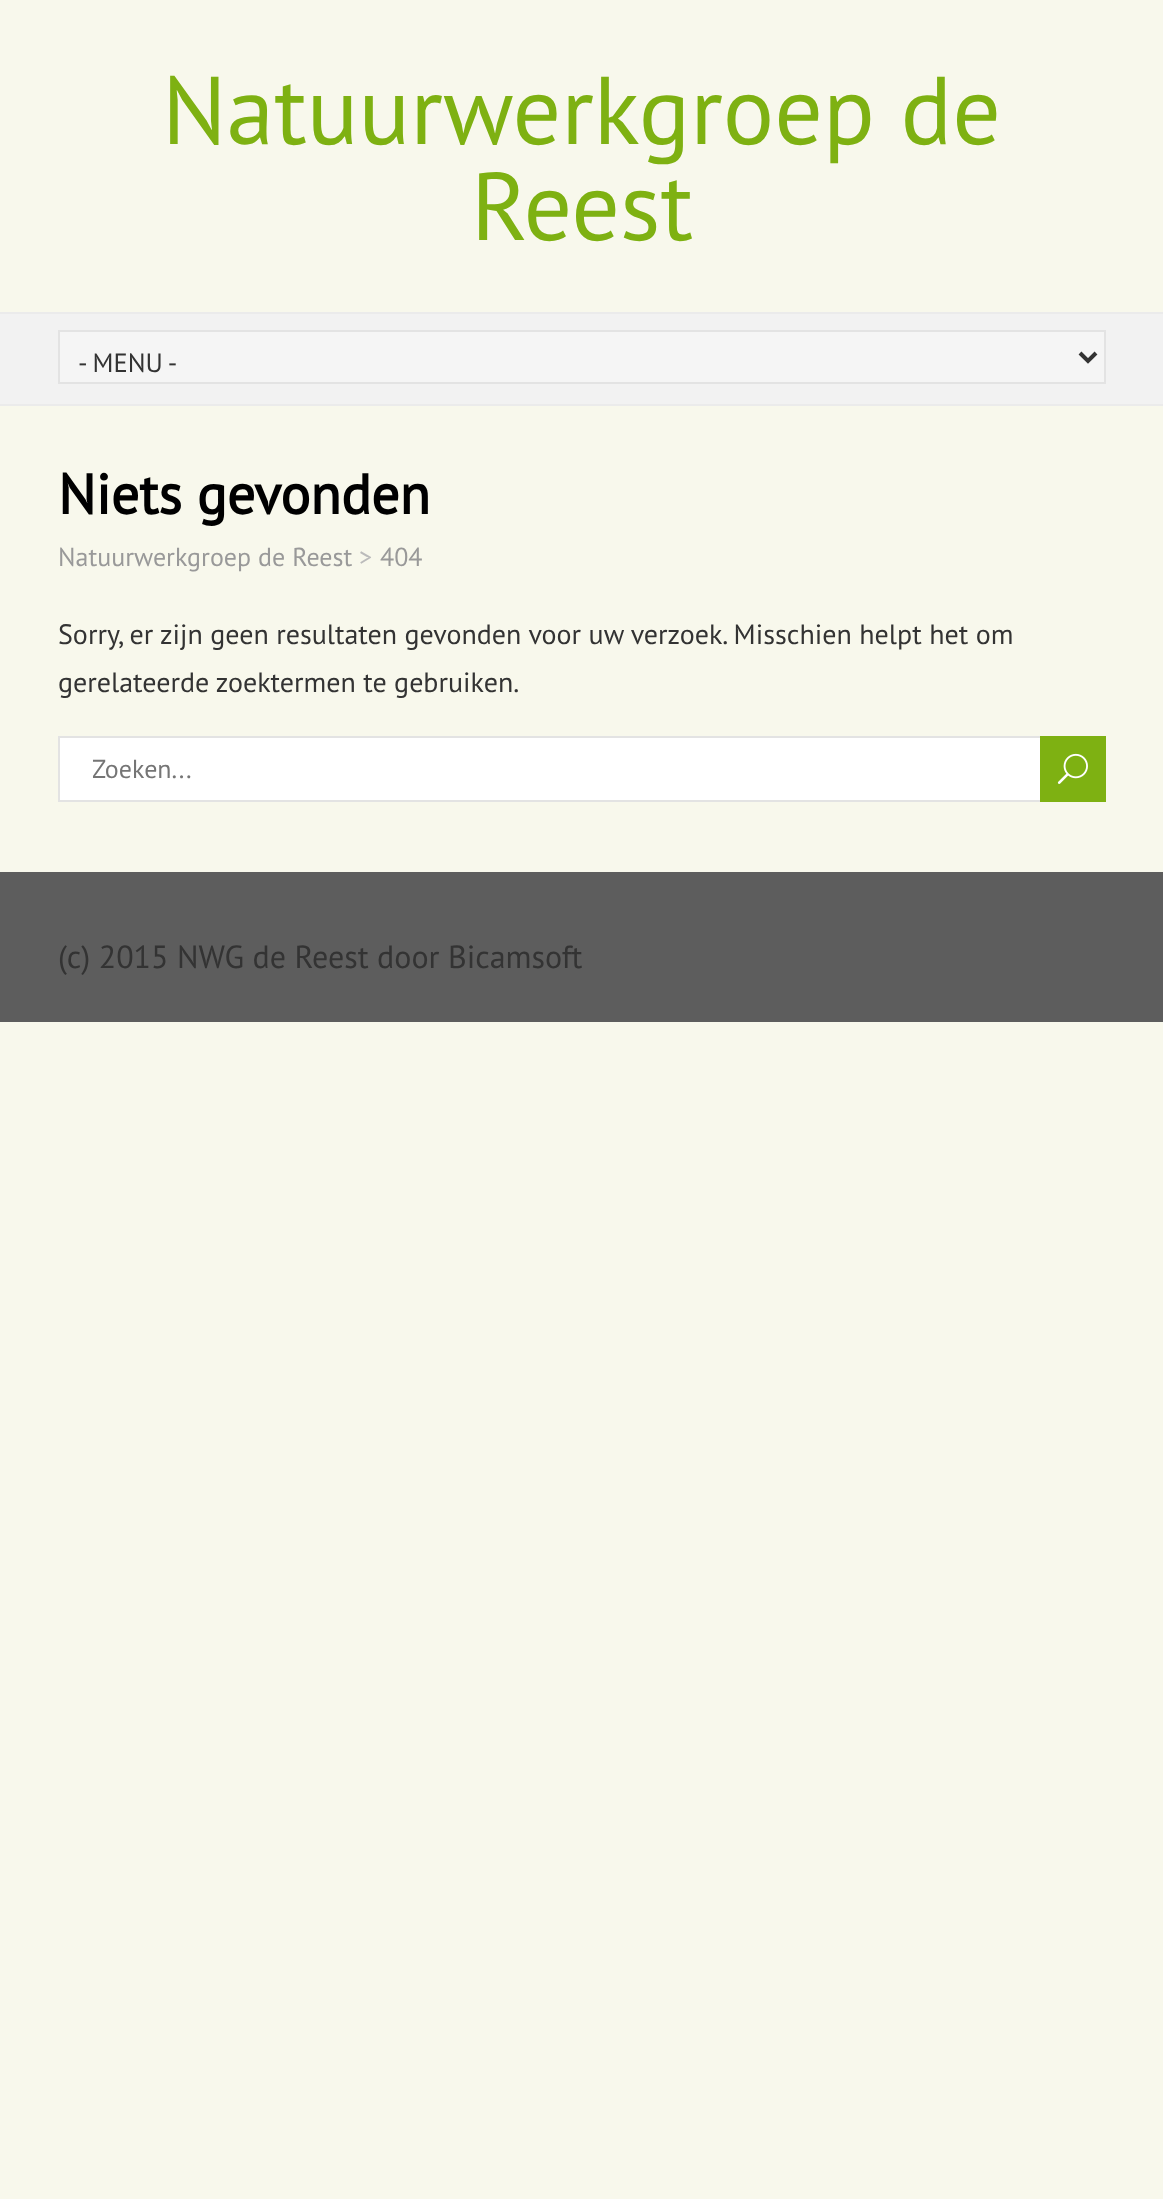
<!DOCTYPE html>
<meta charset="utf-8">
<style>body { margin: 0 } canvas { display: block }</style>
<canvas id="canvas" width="1163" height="2199"></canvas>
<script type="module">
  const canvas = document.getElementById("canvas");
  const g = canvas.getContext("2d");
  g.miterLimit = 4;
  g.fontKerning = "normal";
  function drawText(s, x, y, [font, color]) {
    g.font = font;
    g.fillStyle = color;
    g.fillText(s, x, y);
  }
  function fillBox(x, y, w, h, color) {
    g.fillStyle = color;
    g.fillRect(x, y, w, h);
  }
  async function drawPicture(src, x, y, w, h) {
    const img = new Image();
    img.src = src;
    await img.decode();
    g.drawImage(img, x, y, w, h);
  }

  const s1 = ["96px PT Sans", "#7EB112"];
  const s2 = ["26.5px PT Sans", "#333333"];
  const s3 = ["bold 56px PT Sans", "#000000"];
  const s4 = ["26px PT Sans", "#999999"];
  const s5 = ["26px PT Sans", "#BBBBBB"];
  const s6 = ["28px PT Sans", "#333333"];
  const s7 = ["26px PT Sans", "#757575"];
  const s8 = ["32px PT Sans", "#333333"];

  fillBox(0, 0, 1163, 2199, "#F8F8EC");
  fillBox(0, 312, 1163, 2, "#EBEBEB");
  drawText("Natuurwerkgroep de", 162, 144, s1);
  drawText("Reest", 471, 240, s1);
  fillBox(0, 314, 1163, 90, "#F2F2F2");
  fillBox(0, 404, 1163, 2, "#EBEBEB");
  g.fillStyle = "#F5F5F5";
  g.beginPath();
  g.rect(59, 331, 1046, 52);
  g.fill();
  g.strokeStyle = "#E3E3E3";
  g.lineWidth = 2;
  g.stroke();
  g.beginPath();
  g.moveTo(1080, 353);
  g.lineTo(1088, 361);
  g.lineTo(1096, 353);
  g.strokeStyle = "#333333";
  g.lineWidth = 4;
  g.stroke();
  drawText("- MENU -", 78, 372, s2);
  drawText("Niets gevonden", 58, 514, s3);
  drawText("Natuurwerkgroep de Reest", 58, 566, s4);
  drawText(">", 359, 566, s5);
  drawText("404", 380, 566, s4);
  drawText("Sorry, er zijn geen resultaten gevonden voor uw verzoek. Misschien helpt het om", 58, 644, s6);
  drawText("gerelateerde zoektermen te gebruiken.", 58, 692, s6);
  fillBox(60, 738, 980, 62, "#FFFFFF");
  g.strokeStyle = "#E3E3E3";
  g.lineWidth = 2;
  g.strokeRect(59, 737, 1040, 64);
  drawText("Zoeken...", 92, 778, s7);
  fillBox(1040, 736, 66, 66, "#7EB112");
  await drawPicture("pic1.png", 1057, 753, 31, 31);
  fillBox(0, 872, 1163, 150, "#5D5D5D");
  drawText("(c) 2015 NWG de Reest door Bicamsoft", 58, 968, s8);
</script>
